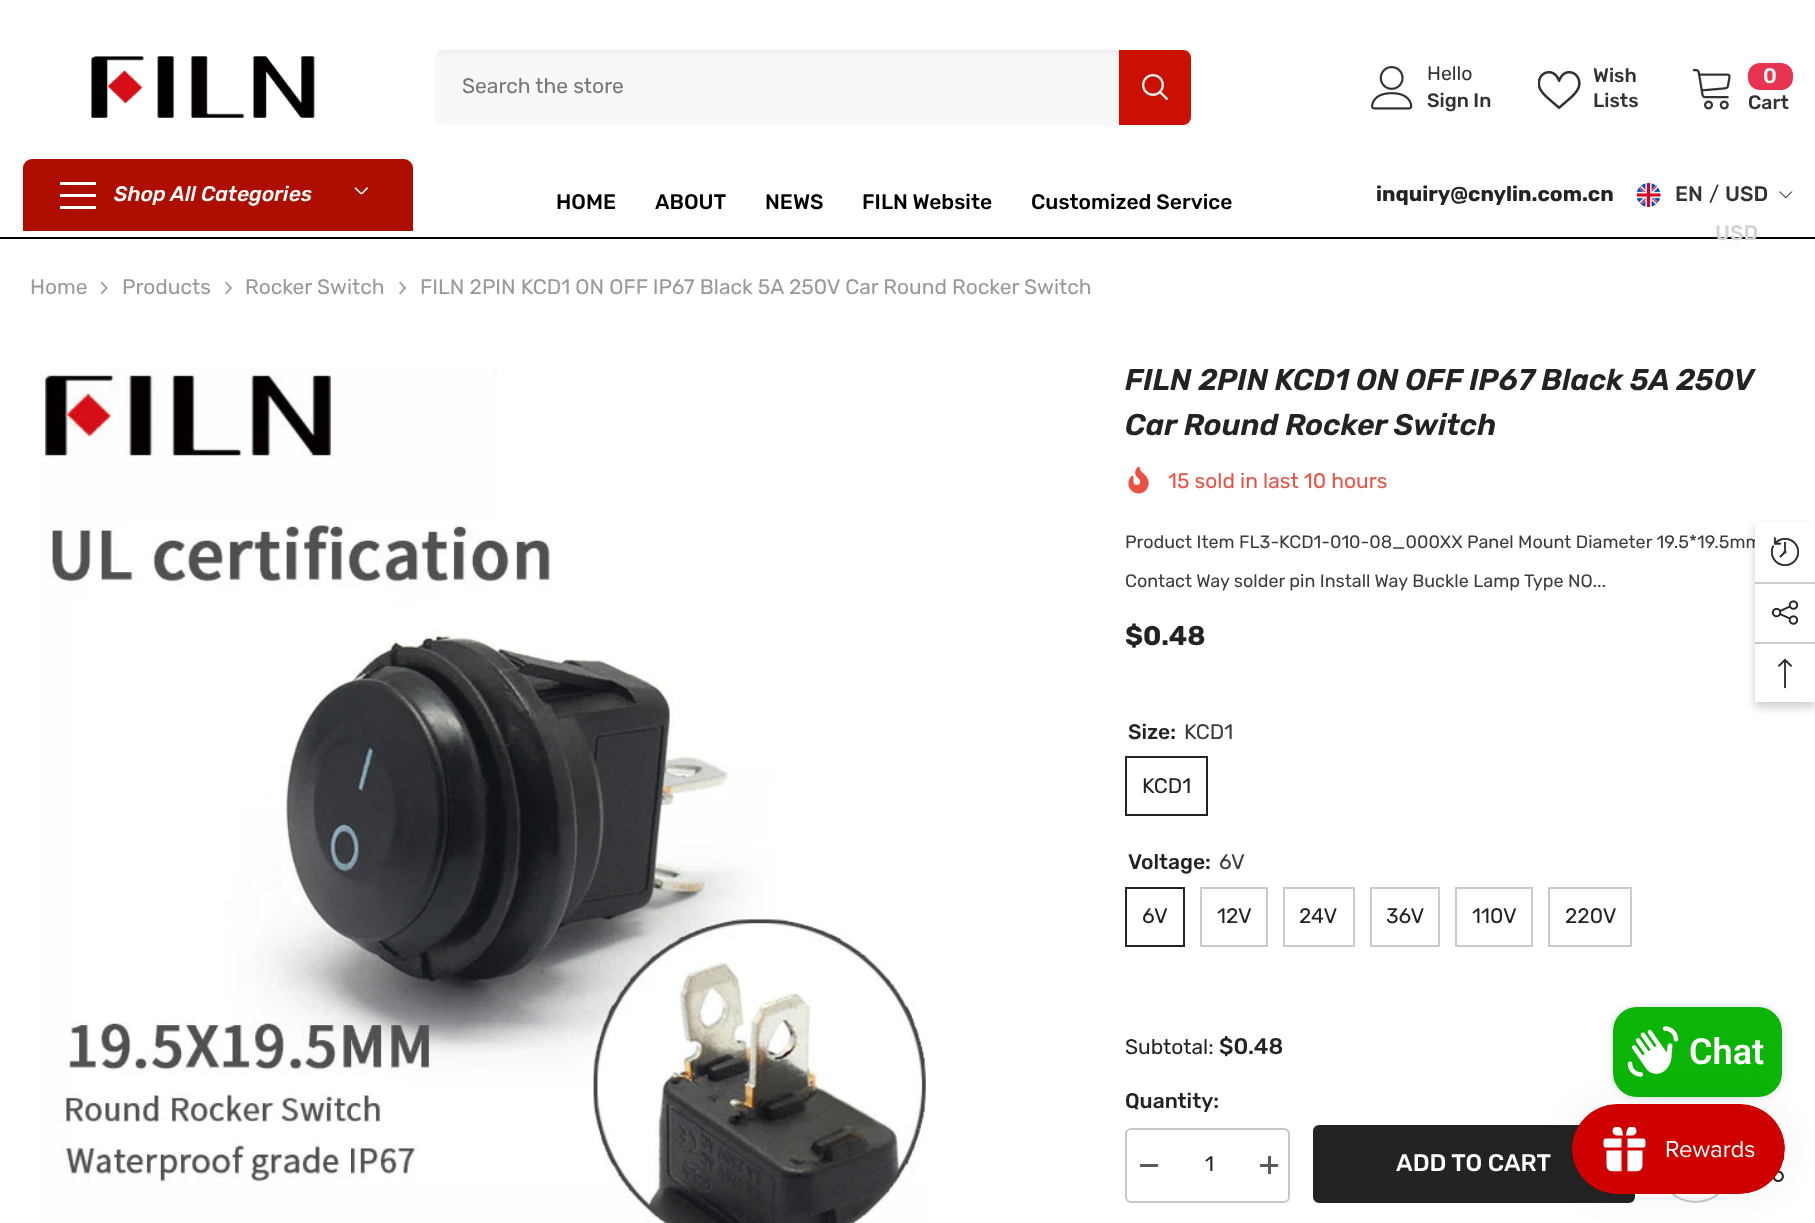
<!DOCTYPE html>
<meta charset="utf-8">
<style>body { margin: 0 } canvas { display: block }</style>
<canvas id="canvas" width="1815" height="1223"></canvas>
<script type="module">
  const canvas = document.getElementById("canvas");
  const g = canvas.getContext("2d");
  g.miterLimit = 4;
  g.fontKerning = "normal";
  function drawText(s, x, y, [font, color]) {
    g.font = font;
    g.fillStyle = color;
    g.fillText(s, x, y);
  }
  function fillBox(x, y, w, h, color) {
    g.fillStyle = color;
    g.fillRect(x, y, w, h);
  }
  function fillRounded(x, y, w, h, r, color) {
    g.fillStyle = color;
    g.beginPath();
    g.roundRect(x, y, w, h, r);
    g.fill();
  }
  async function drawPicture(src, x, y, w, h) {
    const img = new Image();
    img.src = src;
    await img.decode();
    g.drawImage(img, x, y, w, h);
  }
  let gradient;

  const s1 = ["21px Rubik", "#767676"];
  const s2 = ["19.5px Rubik", "#323232"];
  const s3 = ["500 19.5px Rubik", "#323232"];
  const s4 = ["500 21px Rubik", "#FFFFFF"];
  const s5 = ["italic 500 21px Rubik", "#FFFFFF"];
  const s6 = ["500 21px Rubik", "#000000"];
  const s7 = ["bold 21px Rubik", "#232323"];
  const s8 = ["500 21px Rubik", "#323232"];
  const s9 = ["21px Rubik", "#323232"];
  const s10 = ["500 21px Rubik", "#D2D2D2"];
  const s11 = ["21px Rubik", "#999999"];
  const s12 = ["italic 600 30px Rubik", "#232323"];
  const s13 = ["21px Rubik", "#E95144"];
  const s14 = ["18px Rubik", "#3C3C3C"];
  const s15 = ["bold 27px Rubik", "#232323"];
  const s16 = ["500 21px Rubik", "#232323"];
  const s17 = ["21px Rubik", "#3C3C3C"];
  const s18 = ["21px Rubik", "#232323"];
  const s19 = ["500 22.5px Rubik", "#232323"];
  const s20 = ["500 24px Rubik", "#FFFFFF"];
  const s21 = ["600 36px Roboto", "#FFFFFF"];

  fillBox(0, 0, 1815, 1223, "#FFFFFF");
  await drawPicture("pic1.png", 91, 56, 225, 62);
  gradient = g.createLinearGradient(813, 49, 813, 125);
  gradient.addColorStop(0, "#E9EBEE");
  gradient.addColorStop(0.1, "#F7F8FA");
  gradient.addColorStop(1, "#F7F8FA");
  g.fillStyle = gradient;
  g.beginPath();
  g.roundRect(435, 50, 756, 75, 8);
  g.fill();
  drawText("Search the store", 462, 93, s1);
  g.fillStyle = "#CA1000";
  g.beginPath();
  g.roundRect(1119, 50, 72, 75, [0, 8, 8, 0]);
  g.fill();
  await drawPicture("pic2.png", 1142, 74, 26, 26);
  await drawPicture("pic3.png", 1371, 66, 42, 44);
  drawText("Hello", 1427, 80, s2);
  drawText("Sign In", 1427, 107, s3);
  await drawPicture("pic4.png", 1538, 71, 43, 38);
  drawText("Wish", 1593, 82, s3);
  drawText("Lists", 1593, 107, s3);
  await drawPicture("pic5.png", 1692, 69, 39, 41);
  fillRounded(1748, 63, 45, 27, 12, "#E7334F");
  drawText("0", 1763, 83, s4);
  drawText("Cart", 1748, 109, s3);
  fillBox(0, 237, 1815, 2, "#000000");
  g.fillStyle = "#AE0E00";
  g.beginPath();
  g.roundRect(23, 159, 390, 72, [9, 9, 0, 0]);
  g.fill();
  fillBox(60, 194, 36, 3, "#FFFFFF");
  fillBox(60, 182, 36, 3, "#FFFFFF");
  fillBox(60, 206, 36, 3, "#FFFFFF");
  drawText("Shop All Categories", 114, 201, s5);
  g.beginPath();
  g.moveTo(368, 188.5);
  g.lineTo(362, 194.5);
  g.lineTo(361, 193.5);
  g.lineTo(367, 187);
  g.closePath();
  g.fill();
  g.beginPath();
  g.moveTo(355.5, 187);
  g.lineTo(362, 193.5);
  g.lineTo(361, 194.5);
  g.lineTo(354.5, 188.5);
  g.closePath();
  g.fill();
  drawText("HOME", 556, 209, s6);
  drawText("ABOUT", 655, 209, s6);
  drawText("NEWS", 765, 209, s6);
  drawText("FILN Website", 862, 209, s6);
  drawText("Customized Service", 1031, 209, s6);
  drawText("inquiry@cnylin.com.cn", 1376, 201, s7);
  await drawPicture("pic6.png", 1637, 183, 24, 24);
  drawText("EN", 1675, 201, s8);
  drawText("/", 1709, 201, s9);
  drawText("USD", 1725, 201, s8);
  await drawPicture("pic7.png", 1779, 191, 14, 8);
  drawText("USD", 1715, 240, s10);
  drawText("Home", 30, 294, s11);
  await drawPicture("pic8.png", 100, 281, 8, 14);
  drawText("Products", 122, 294, s11);
  await drawPicture("pic9.png", 225, 281, 7, 14);
  drawText("Rocker Switch", 245, 294, s11);
  await drawPicture("pic9.png", 399, 281, 7, 14);
  drawText("FILN 2PIN KCD1 ON OFF IP67 Black 5A 250V Car Round Rocker Switch", 420, 294, s11);
  await drawPicture("pic10.png", 40, 367, 886, 856);
  drawText("FILN 2PIN KCD1 ON OFF IP67 Black 5A 250V", 1125, 390, s12);
  drawText("Car Round Rocker Switch", 1125, 435, s12);
  await drawPicture("pic11.png", 1128, 467, 21, 27);
  drawText("15 sold in last 10 hours", 1168, 488, s13);
  drawText("Product Item FL3-KCD1-010-08_000XX Panel Mount Diameter 19.5*19.5mm", 1125, 548, s14);
  drawText("Contact Way solder pin Install Way Buckle Lamp Type NO...", 1125, 587, s14);
  drawText("$0.48", 1125, 645, s15);
  drawText("Size:", 1128, 739, s16);
  drawText("KCD1", 1184, 739, s17);
  g.strokeStyle = "#232323";
  g.lineWidth = 2;
  g.strokeRect(1126, 757, 81, 58);
  drawText("KCD1", 1142, 793, s18);
  drawText("Voltage:", 1128, 869, s16);
  drawText("6V", 1219, 869, s17);
  g.strokeRect(1126, 888, 58, 58);
  drawText("6V", 1142, 923, s18);
  g.strokeStyle = "#CBCBCB";
  g.strokeRect(1201, 888, 66, 58);
  drawText("12V", 1217, 923, s18);
  g.strokeRect(1284, 888, 70, 58);
  drawText("24V", 1299, 923, s18);
  g.strokeRect(1371, 888, 68, 58);
  drawText("36V", 1386, 923, s18);
  g.strokeRect(1456, 888, 76, 58);
  drawText("110V", 1472, 923, s18);
  g.strokeRect(1549, 888, 82, 58);
  drawText("220V", 1565, 923, s18);
  drawText("Subtotal:", 1125, 1054, s18);
  drawText("$0.48", 1219, 1054, s19);
  drawText("Quantity:", 1125, 1108, s16);
  g.beginPath();
  g.roundRect(1126, 1129, 163, 73, 5);
  g.strokeStyle = "#C7C7C7";
  g.stroke();
  fillBox(1140, 1164, 18, 3, "#5A5A5A");
  drawText("1", 1205, 1171, s18);
  fillBox(1260, 1164, 18, 3, "#5A5A5A");
  fillBox(1268, 1156, 3, 18, "#5A5A5A");
  g.fillStyle = "#232323";
  g.beginPath();
  g.roundRect(1314, 1126, 320, 76, 5);
  g.fill();
  g.strokeStyle = "#232323";
  g.stroke();
  drawText("ADD TO CART", 1396, 1171, s20);
  g.beginPath();
  g.arc(1695.5, 1165.5, 36.5, 0, Math.PI * 2);
  g.strokeStyle = "#C7C7C7";
  g.stroke();
  await drawPicture("pic12.png", 1773, 1158, 11, 24);
  g.fillStyle = "rgba(0, 0, 0, 0.2)";
  g.filter = "blur(5px)";
  g.beginPath();
  g.rect(1755, 527, 60, 180);
  g.fill();
  g.filter = "none";
  fillBox(1755, 522, 60, 180, "#FFFFFF");
  await drawPicture("pic13.png", 1770, 537, 30, 30);
  fillBox(1755, 582, 60, 2, "#CCCCCC");
  await drawPicture("pic14.png", 1771, 600, 28, 25);
  fillBox(1755, 642, 60, 2, "#CCCCCC");
  await drawPicture("pic15.png", 1778, 659, 14, 30);
  g.fillStyle = "rgba(0, 0, 0, 0.15)";
  g.filter = "blur(4px)";
  g.beginPath();
  g.roundRect(1613, 1007, 169, 90, 24);
  g.fill();
  g.filter = "none";
  fillRounded(1613, 1007, 169, 90, 24, "#0CB407");
  await drawPicture("pic16.png", 1627, 1026, 52, 51);
  drawText("Chat", 1689, 1064, s21);
  g.fillStyle = "rgba(0, 0, 0, 0.05)";
  g.filter = "blur(19px)";
  g.beginPath();
  g.roundRect(1572, 1104, 213, 90, 45);
  g.fill();
  g.filter = "none";
  await drawPicture("pic17.png", 1572, 1104, 213, 90);
</script>
